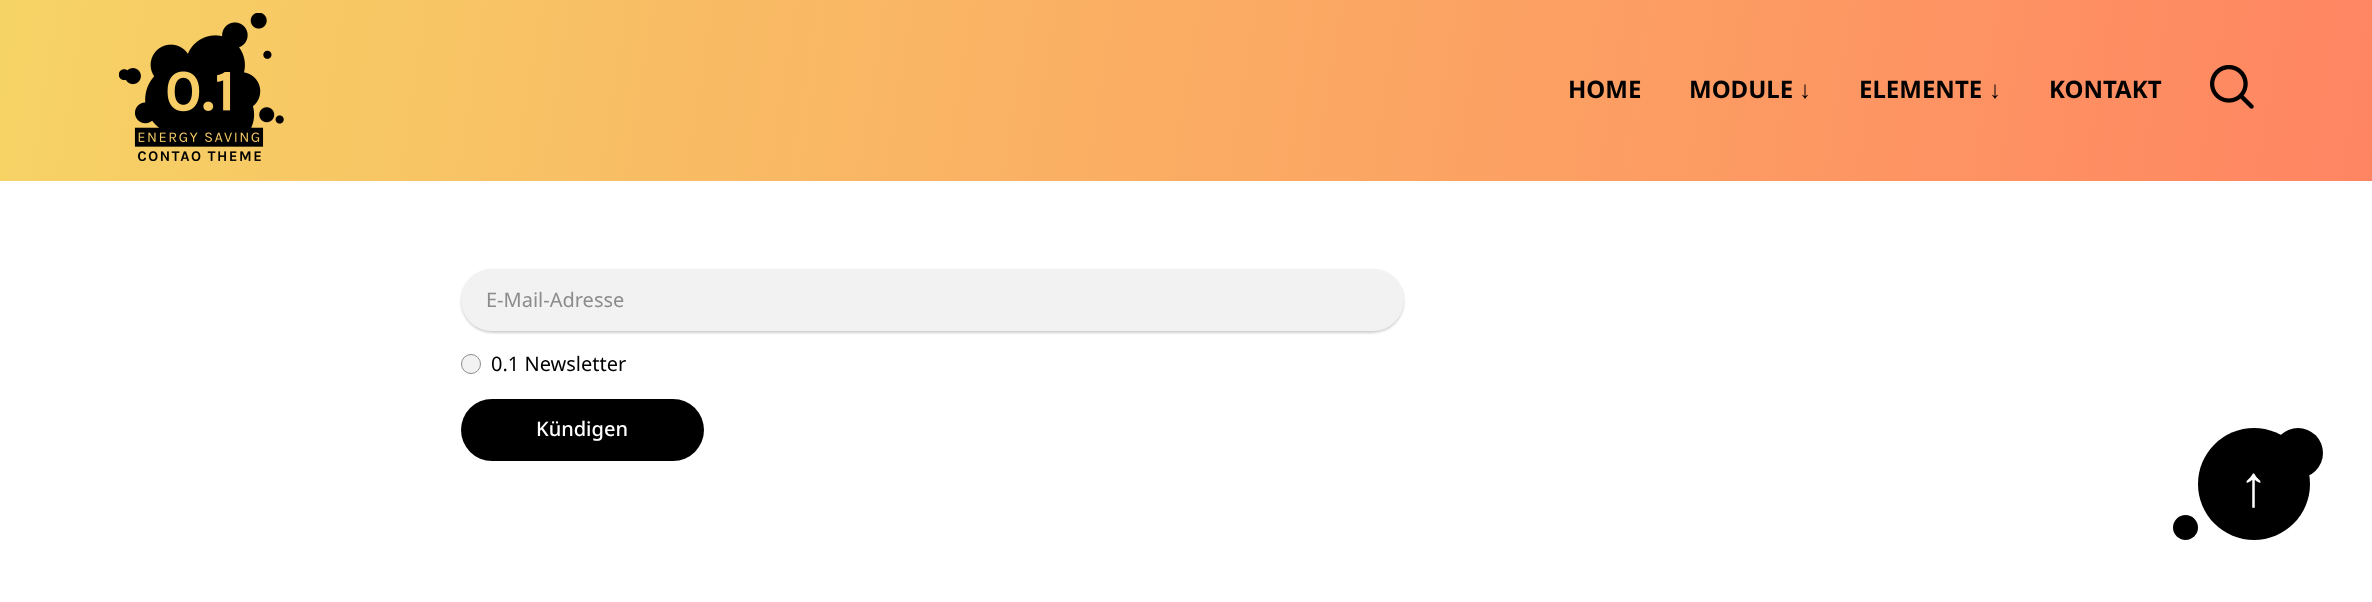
<!DOCTYPE html>
<meta charset="utf-8">
<style>body { margin: 0 } canvas { display: block }</style>
<canvas id="canvas" width="2372" height="602"></canvas>
<script type="module">
  const canvas = document.getElementById("canvas");
  const g = canvas.getContext("2d");
  g.miterLimit = 4;
  g.fontKerning = "normal";
  function drawText(s, x, y, [font, color]) {
    g.font = font;
    g.fillStyle = color;
    g.fillText(s, x, y);
  }
  function fillBox(x, y, w, h, color) {
    g.fillStyle = color;
    g.fillRect(x, y, w, h);
  }
  function fillRounded(x, y, w, h, r, color) {
    g.fillStyle = color;
    g.beginPath();
    g.roundRect(x, y, w, h, r);
    g.fill();
  }
  async function drawPicture(src, x, y, w, h) {
    const img = new Image();
    img.src = src;
    await img.decode();
    g.drawImage(img, x, y, w, h);
  }
  let gradient;

  const s1 = ["bold 24px Noto Sans", "#000000"];
  const s2 = ["bold 24px Liberation Sans", "#000000"];
  const s3 = ["20px Noto Sans", "#8C8C8C"];
  const s4 = ["20px Noto Sans", "#000000"];
  const s5 = ["500 20px Noto Sans", "#FFFFFF"];
  const s6 = ["bold 58px Liberation Sans", "#FFFFFF"];

  fillBox(0, 0, 2372, 602, "#FFFFFF");
  gradient = g.createLinearGradient(15, -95, 2357, 276);
  gradient.addColorStop(0, "#F6D365");
  gradient.addColorStop(1, "#FF8562");
  g.fillStyle = gradient;
  g.fillRect(0, 0, 2372, 181);
  await drawPicture("pic1.png", 119, 13, 165, 148);
  drawText("HOME", 1568, 98, s1);
  drawText("MODULE", 1689, 98, s1);
  drawText("↓", 1799, 98, s2);
  drawText("ELEMENTE", 1859, 98, s1);
  drawText("↓", 1989, 98, s2);
  drawText("KONTAKT", 2049, 98, s1);
  await drawPicture("pic2.png", 2210, 65, 44, 44);
  g.fillStyle = "rgba(99, 99, 99, 0.3)";
  g.filter = "blur(1px)";
  g.beginPath();
  g.roundRect(461, 270, 943, 63, 31.5);
  g.fill();
  g.filter = "none";
  fillRounded(461, 269, 943, 62, 31, "#F2F2F2");
  drawText("E-Mail-Adresse", 486, 307, s3);
  g.fillStyle = "#F2F2F2";
  g.beginPath();
  g.arc(471, 364, 9.5, 0, Math.PI * 2);
  g.fill();
  g.strokeStyle = "#8C8C8C";
  g.stroke();
  drawText("0.1 Newsletter", 491, 371, s4);
  fillRounded(461, 399, 243, 62, 31, "#000000");
  drawText("Kündigen", 536, 436, s5);
  g.fillStyle = "#000000";
  g.beginPath();
  g.arc(2254, 484, 56, 0, Math.PI * 2);
  g.fill();
  g.beginPath();
  g.arc(2298, 453, 25, 0, Math.PI * 2);
  g.fill();
  g.letterSpacing = "1px";
  drawText("↑", 2239, 506, s6);
  g.fillStyle = "#000000";
  g.beginPath();
  g.arc(2185.5, 527.5, 12.5, 0, Math.PI * 2);
  g.fill();
</script>
